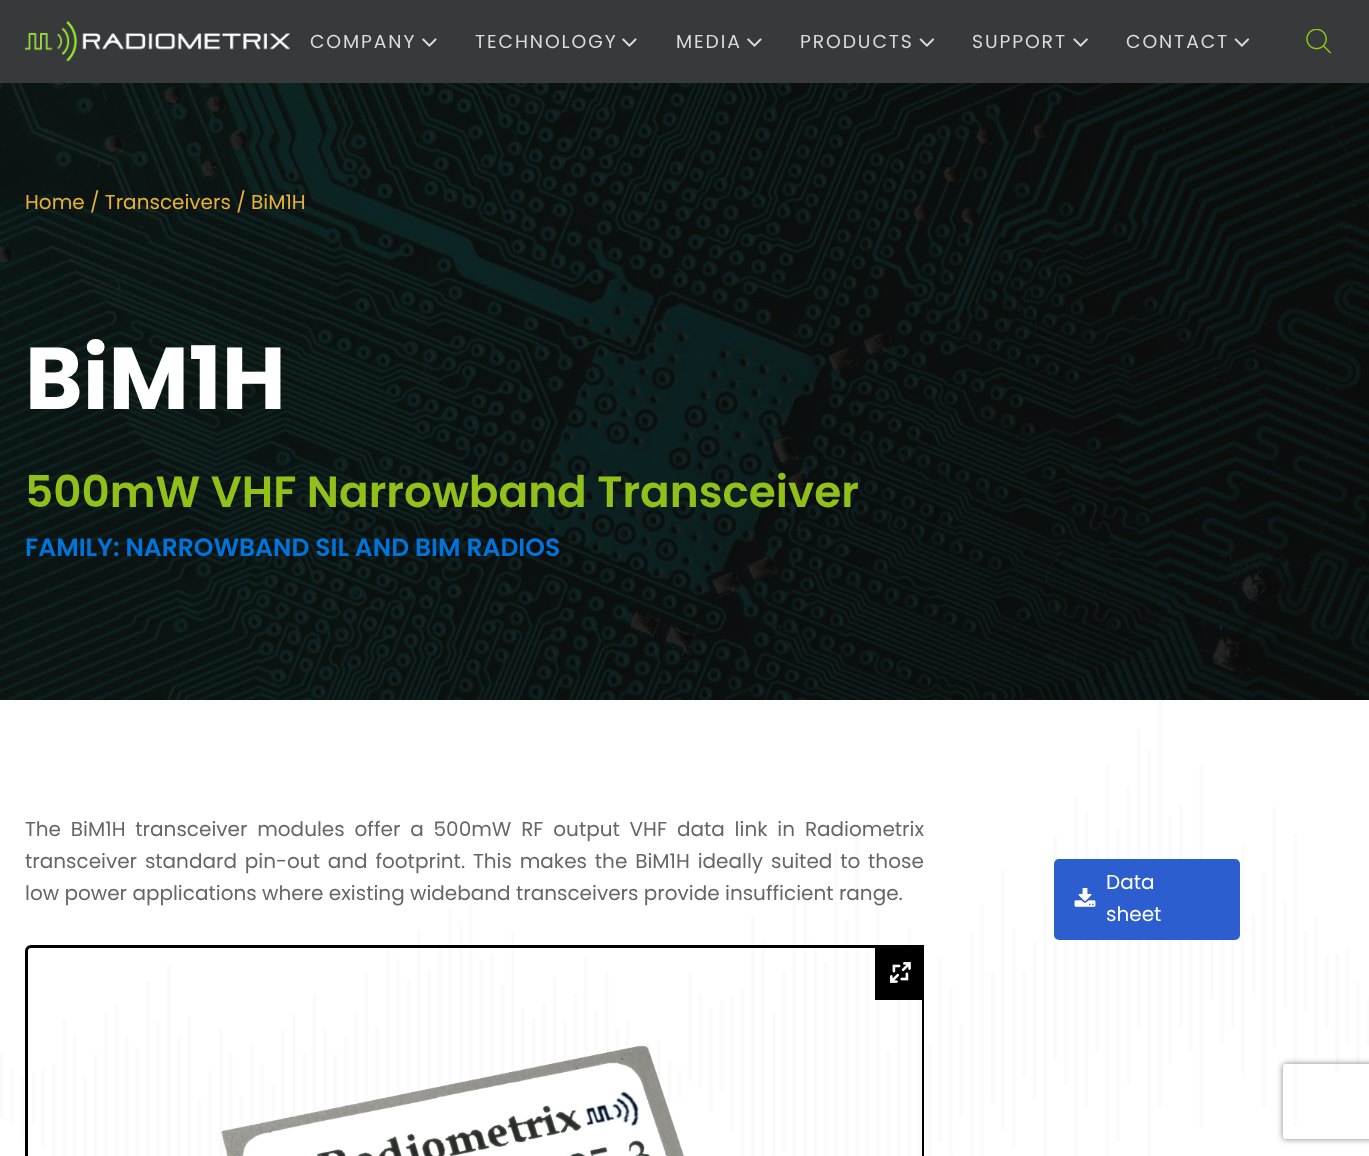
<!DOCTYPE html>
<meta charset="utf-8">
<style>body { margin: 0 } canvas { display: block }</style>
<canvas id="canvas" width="1369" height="1156"></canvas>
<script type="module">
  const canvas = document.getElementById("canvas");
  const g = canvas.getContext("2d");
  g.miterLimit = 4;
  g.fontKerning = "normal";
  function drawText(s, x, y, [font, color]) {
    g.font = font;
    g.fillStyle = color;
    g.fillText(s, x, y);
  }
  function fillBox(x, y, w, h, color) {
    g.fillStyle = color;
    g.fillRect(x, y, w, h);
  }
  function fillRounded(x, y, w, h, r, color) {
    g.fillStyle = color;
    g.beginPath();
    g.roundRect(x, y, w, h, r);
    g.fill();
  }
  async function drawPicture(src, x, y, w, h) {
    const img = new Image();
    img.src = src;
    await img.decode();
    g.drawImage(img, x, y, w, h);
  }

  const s1 = ["18.75px Poppins", "#DBDBDC"];
  const s2 = ["20px Poppins", "#E8B138"];
  const s3 = ["bold 87.5px Poppins", "#FFFFFF"];
  const s4 = ["600 43.75px Poppins", "#90C019"];
  const s5 = ["600 25px Poppins", "#0074DB"];
  const s6 = ["20px Poppins", "#666666"];
  const s7 = ["20px Poppins", "#FFFFFF"];

  fillBox(0, 0, 1369, 1156, "#FFFFFF");
  fillBox(0, 0, 1369, 83, "#37393B");
  await drawPicture("pic1.png", 25, 21, 265, 41);
  g.letterSpacing = "1.9px";
  drawText("COMPANY", 310, 48, s1);
  await drawPicture("pic2.png", 422, 38, 15, 9);
  drawText("TECHNOLOGY", 475, 48, s1);
  await drawPicture("pic2.png", 622, 38, 15, 9);
  drawText("MEDIA", 676, 48, s1);
  await drawPicture("pic2.png", 747, 38, 15, 9);
  drawText("PRODUCTS", 800, 48, s1);
  await drawPicture("pic3.png", 919, 38, 16, 9);
  drawText("SUPPORT", 972, 48, s1);
  await drawPicture("pic4.png", 1073, 38, 15, 9);
  drawText("CONTACT", 1126, 48, s1);
  await drawPicture("pic3.png", 1234, 38, 16, 9);
  await drawPicture("pic5.png", 1306, 29, 25, 25);
  await drawPicture("pic6.png", 0, 83, 1369, 617);
  g.letterSpacing = "0px";
  drawText("Home / Transceivers / BiM1H", 25, 209, s2);
  drawText("BiM1H", 25, 409, s3);
  drawText("500mW VHF Narrowband Transceiver", 25, 507, s4);
  drawText("FAMILY: NARROWBAND SIL AND BIM RADIOS", 25, 556, s5);
  await drawPicture("pic7.png", 0, 700, 1369, 456);
  g.wordSpacing = "4.5px";
  drawText("The BiM1H transceiver modules offer a 500mW RF output VHF data link in Radiometrix", 25, 836, s6);
  g.wordSpacing = "2.5px";
  drawText("transceiver standard pin-out and footprint. This makes the BiM1H ideally suited to those", 25, 868, s6);
  g.wordSpacing = "0px";
  drawText("low power applications where existing wideband transceivers provide insufficient range.", 25, 900, s6);
  g.save();
  g.beginPath();
  g.rect(25, 945, 899, 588);
  g.clip();
  g.beginPath();
  g.roundRect(26.5, 946.5, 897, 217, 4.5);
  g.strokeStyle = "#000000";
  g.lineWidth = 3;
  g.stroke();
  g.restore();
  await drawPicture("pic8.png", 221, 1045, 463, 111);
  fillBox(875, 945, 49, 55, "#000000");
  await drawPicture("pic9.png", 890, 962, 21, 21);
  fillRounded(1054, 859, 186, 81, 5, "#2C5ED0");
  await drawPicture("pic10.png", 1074, 888, 22, 19);
  drawText("Data", 1106, 889, s7);
  drawText("sheet", 1106, 921, s7);
  g.save();
  g.beginPath();
  g.moveTo(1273, 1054);
  g.lineTo(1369, 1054);
  g.lineTo(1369, 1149);
  g.lineTo(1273, 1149);
  g.closePath();
  g.moveTo(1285.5, 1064);
  g.lineTo(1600.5, 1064);
  g.bezierCurveTo(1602, 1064, 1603, 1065, 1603, 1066.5);
  g.lineTo(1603, 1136.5);
  g.bezierCurveTo(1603, 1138, 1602, 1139, 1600.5, 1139);
  g.lineTo(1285.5, 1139);
  g.bezierCurveTo(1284, 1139, 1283, 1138, 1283, 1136.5);
  g.lineTo(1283, 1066.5);
  g.bezierCurveTo(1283, 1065, 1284, 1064, 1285.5, 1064);
  g.closePath();
  g.clip("evenodd");
  g.fillStyle = "#808080";
  g.filter = "blur(3px)";
  g.beginPath();
  g.roundRect(1283, 1064, 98, 75, 2.5);
  g.fill();
  g.filter = "none";
  g.restore();
</script>
